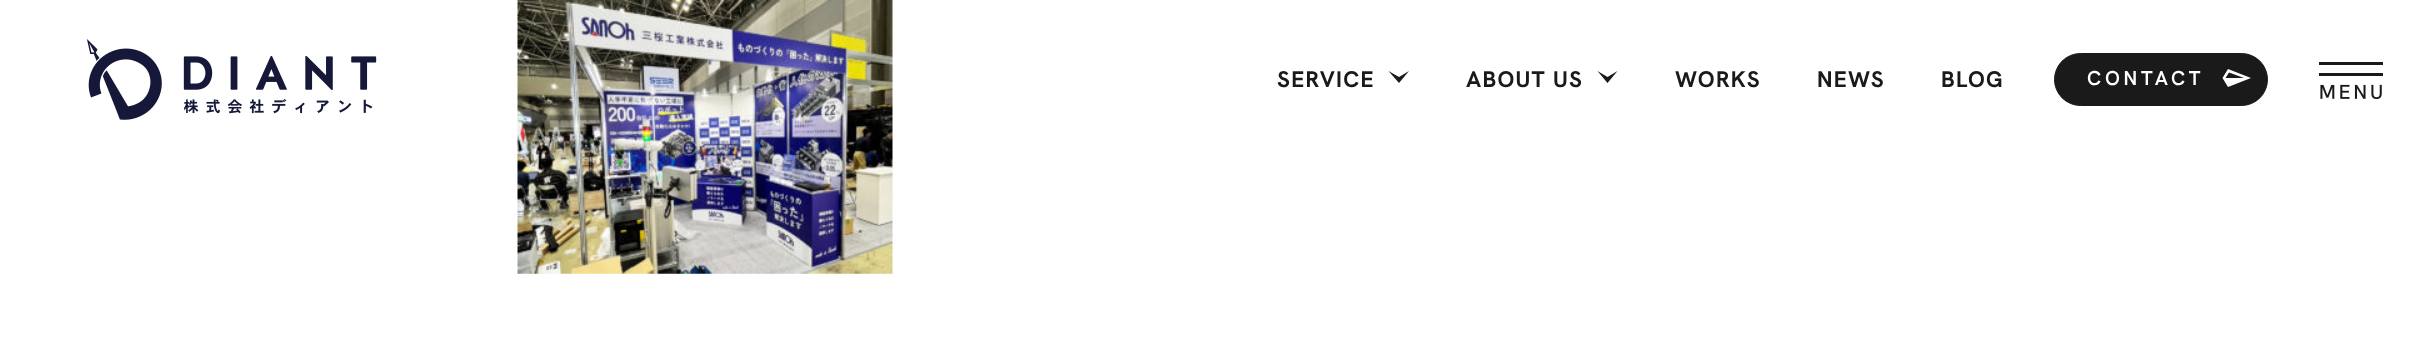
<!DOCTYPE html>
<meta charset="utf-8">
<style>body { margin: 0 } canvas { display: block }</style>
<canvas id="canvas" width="2434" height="352"></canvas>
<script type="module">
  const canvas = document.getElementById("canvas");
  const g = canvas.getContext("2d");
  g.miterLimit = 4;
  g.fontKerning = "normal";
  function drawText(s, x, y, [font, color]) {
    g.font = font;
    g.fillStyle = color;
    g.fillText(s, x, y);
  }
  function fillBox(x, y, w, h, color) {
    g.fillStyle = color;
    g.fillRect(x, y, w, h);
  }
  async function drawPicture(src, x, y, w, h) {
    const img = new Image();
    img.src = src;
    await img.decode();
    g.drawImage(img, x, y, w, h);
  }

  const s1 = ["bold 22.5px Hanken Grotesk", "#1A1A1A"];
  const s2 = ["600 20px Hanken Grotesk", "#FFFFFF"];

  fillBox(0, 0, 2434, 352, "#FFFFFF");
  await drawPicture("pic1.png", 517, 0, 376, 274);
  await drawPicture("pic2.png", 87, 39, 290, 81);
  g.letterSpacing = "1.25px";
  drawText("SERVICE", 1277, 87, s1);
  g.beginPath();
  g.moveTo(1409, 71);
  g.lineTo(1399, 83);
  g.lineTo(1388.5, 71);
  g.lineTo(1399, 77);
  g.closePath();
  g.fill();
  drawText("ABOUT US", 1466, 87, s1);
  g.beginPath();
  g.moveTo(1617.5, 71);
  g.lineTo(1607.5, 83);
  g.lineTo(1597.5, 71);
  g.lineTo(1607.5, 77);
  g.closePath();
  g.fill();
  drawText("WORKS", 1675, 87, s1);
  drawText("NEWS", 1817, 87, s1);
  drawText("BLOG", 1941, 87, s1);
  g.beginPath();
  g.roundRect(2054.5, 53.5, 213, 52, 26);
  g.fill();
  g.strokeStyle = "#1A1A1A";
  g.stroke();
  g.letterSpacing = "3.75px";
  drawText("CONTACT", 2087, 85, s2);
  g.beginPath();
  g.moveTo(2228, 69);
  g.lineTo(2222.5, 78);
  g.lineTo(2228, 87);
  g.lineTo(2251, 78);
  g.closePath();
  g.moveTo(2229, 72.5);
  g.lineTo(2244, 78);
  g.lineTo(2225.5, 78);
  g.closePath();
  g.fill();
  await drawPicture("pic3.png", 2319, 62, 64, 37);
</script>
